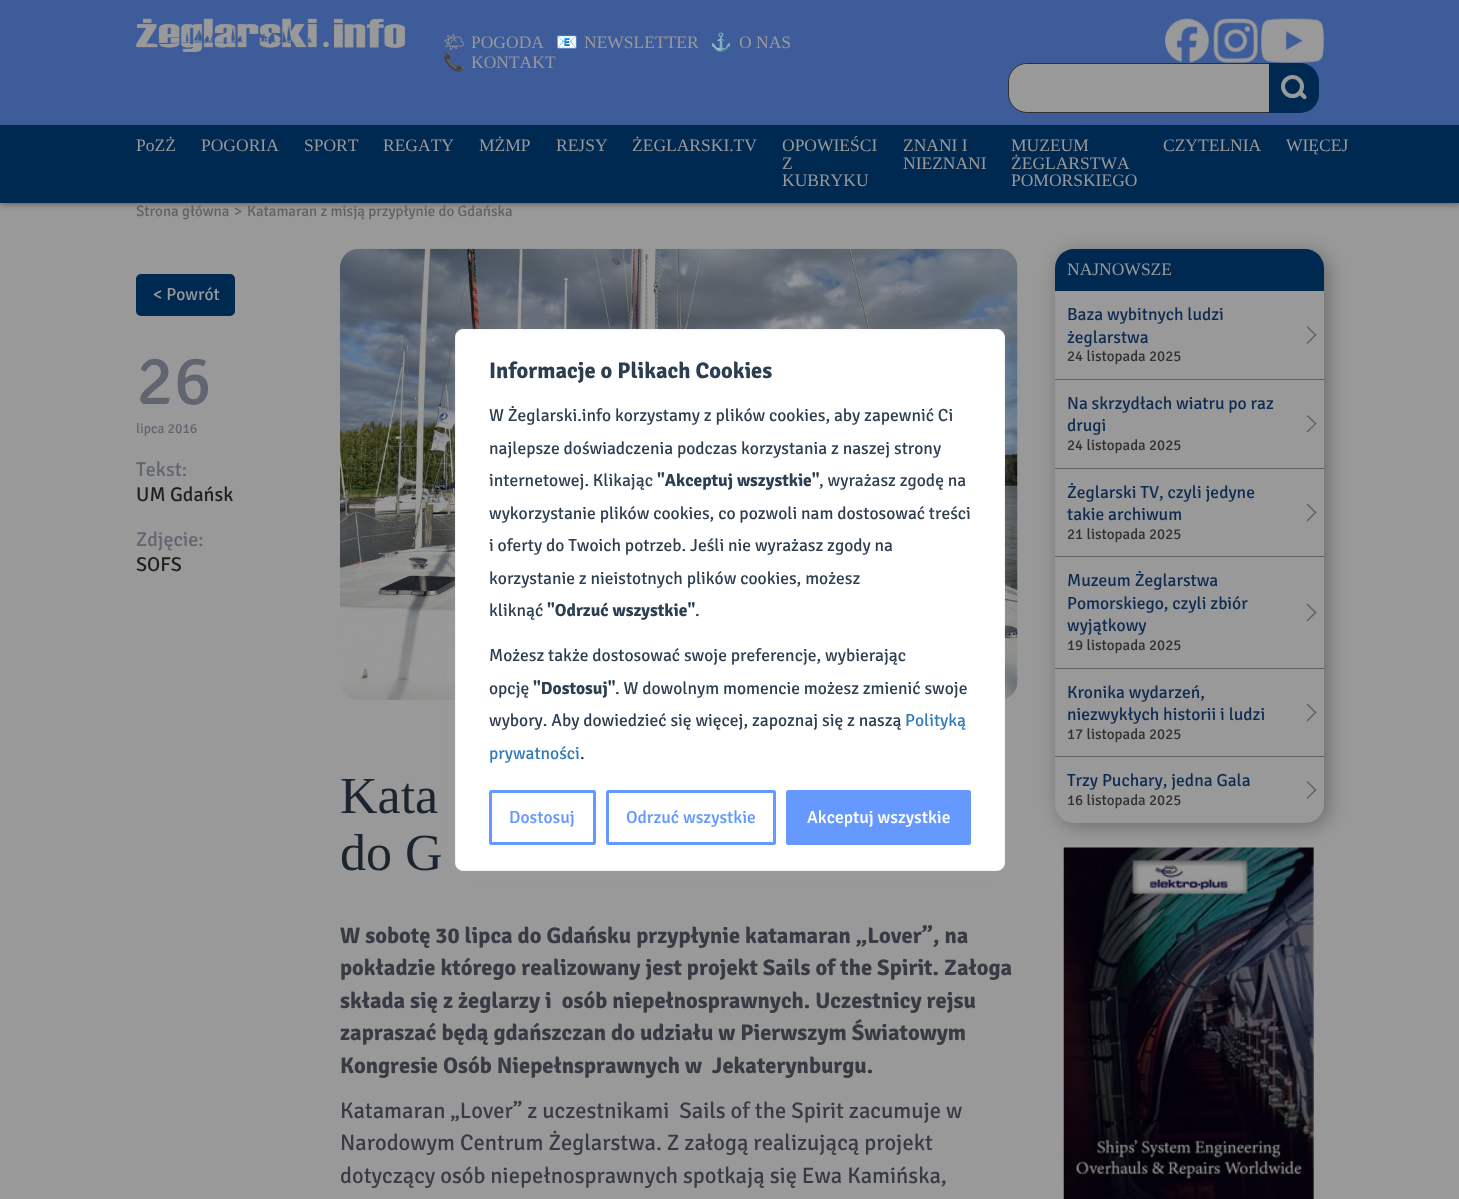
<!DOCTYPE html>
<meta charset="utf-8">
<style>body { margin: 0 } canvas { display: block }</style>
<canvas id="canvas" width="1459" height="1199"></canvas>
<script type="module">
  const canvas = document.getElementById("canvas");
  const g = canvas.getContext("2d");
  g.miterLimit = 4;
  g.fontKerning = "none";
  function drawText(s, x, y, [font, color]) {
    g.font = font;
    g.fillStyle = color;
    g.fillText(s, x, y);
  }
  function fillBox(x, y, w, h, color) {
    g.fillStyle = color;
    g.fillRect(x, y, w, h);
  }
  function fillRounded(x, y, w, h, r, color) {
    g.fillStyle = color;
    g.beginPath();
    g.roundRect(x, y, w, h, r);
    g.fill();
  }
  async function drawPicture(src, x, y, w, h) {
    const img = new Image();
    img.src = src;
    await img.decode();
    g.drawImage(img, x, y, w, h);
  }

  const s1 = ["17.5px Noto Emoji", "#999999"];
  const s2 = ["17.5px Liberation Serif", "#999999"];
  const s3 = ["17.5px Noto Color Emoji", "#999999"];
  const s4 = ["15px Signika", "#61615F"];
  const s5 = ["17.5px Signika", "#999999"];
  const s6 = ["70px Signika", "#616570"];
  const s7 = ["13.75px Signika", "#616570"];
  const s8 = ["20px Signika", "#616570"];
  const s9 = ["20px Signika", "#1F1F1F"];
  const s10 = ["17.5px Signika", "#0D2B52"];
  const s11 = ["15px Signika", "#313031"];
  const s12 = ["52px Liberation Serif", "#1A2530"];
  const s13 = ["bold 22.5px Signika", "#383B43"];
  const s14 = ["22.5px Signika", "#383B43"];
  const s15 = ["bold 22.5px Signika", "#2C3E50"];
  const s16 = ["17.5px Signika", "#2C3E50"];
  const s17 = ["bold 17.5px Signika", "#2C3E50"];
  const s18 = ["17.5px Signika", "#337AB7"];
  const s19 = ["500 17.5px Signika", "#6699FF"];
  const s20 = ["500 17.5px Signika", "#FFFFFF"];

  fillBox(0, 0, 1459, 1199, "#999999");
  g.fillStyle = "rgba(0, 0, 0, 0.4)";
  g.filter = "blur(3px)";
  g.beginPath();
  g.rect(0, 1, 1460, 203);
  g.fill();
  g.filter = "none";
  fillBox(0, 0, 1459, 125, "#3D5C99");
  await drawPicture("pic1.png", 136, 18, 269, 34);
  drawText("🌤", 443, 48, s1);
  drawText("POGODA", 471, 48, s2);
  drawText("📧", 556, 48, s3);
  drawText("NEWSLETTER", 584, 48, s2);
  drawText("⚓", 710, 48, s3);
  drawText("O NAS", 739, 48, s2);
  drawText("📞", 443, 68, s3);
  drawText("KONTAKT", 471, 68, s2);
  await drawPicture("pic2.png", 1165, 18, 44, 45);
  await drawPicture("pic3.png", 1213, 18, 45, 45);
  await drawPicture("pic4.png", 1261, 18, 63, 45);
  g.beginPath();
  g.roundRect(1008.5, 63.5, 266, 49, [18.5, 0, 0, 18.5]);
  g.fill();
  g.strokeStyle = "#313031";
  g.stroke();
  g.beginPath();
  g.roundRect(1009, 64, 252, 46, [19, 0, 0, 19]);
  g.fill();
  g.fillStyle = "#002952";
  g.beginPath();
  g.roundRect(1269, 63, 50, 50, [0, 19, 19, 0]);
  g.fill();
  g.beginPath();
  g.arc(1292.5, 86.5, 9.5, 0, Math.PI * 2);
  g.strokeStyle = "#999999";
  g.lineWidth = 4;
  g.stroke();
  g.fillStyle = "#999999";
  g.beginPath();
  g.moveTo(1299, 91.5);
  g.bezierCurveTo(1300.5, 89.5, 1302.5, 92.5, 1304, 93.5);
  g.bezierCurveTo(1305, 95, 1308, 97, 1306, 98.5);
  g.bezierCurveTo(1304, 100.5, 1302, 97.5, 1301, 96.5);
  g.bezierCurveTo(1300, 95, 1297, 93, 1299, 91.5);
  g.closePath();
  g.fill();
  fillBox(0, 125, 1459, 78, "#002952");
  drawText("PoZŻ", 136, 151, s2);
  drawText("POGORIA", 201, 151, s2);
  drawText("SPORT", 304, 151, s2);
  drawText("REGATY", 383, 151, s2);
  drawText("MŻMP", 479, 151, s2);
  drawText("REJSY", 556, 151, s2);
  drawText("ŻEGLARSKI.TV", 632, 151, s2);
  drawText("OPOWIEŚCI", 782, 151, s2);
  drawText("Z", 782, 169, s2);
  drawText("KUBRYKU", 782, 186, s2);
  drawText("ZNANI I", 903, 151, s2);
  drawText("NIEZNANI", 903, 169, s2);
  drawText("MUZEUM", 1011, 151, s2);
  drawText("ŻEGLARSTWA", 1011, 169, s2);
  drawText("POMORSKIEGO", 1011, 186, s2);
  drawText("CZYTELNIA", 1163, 151, s2);
  drawText("WIĘCEJ", 1286, 151, s2);
  drawText("Strona główna", 136, 216, s4);
  drawText(">", 234, 216, s4);
  drawText("Katamaran z misją przypłynie do Gdańska", 247, 216, s4);
  fillRounded(136, 274, 99, 42, 5, "#002952");
  drawText("< Powrót", 153, 300, s5);
  drawText("26", 136, 404, s6);
  drawText("lipca 2016", 136, 433, s7);
  drawText("Tekst:", 136, 476, s8);
  drawText("UM Gdańsk", 136, 501, s9);
  drawText("Zdjęcie:", 136, 546, s8);
  drawText("SOFS", 136, 571, s9);
  await drawPicture("pic5.png", 1063, 847, 251, 352);
  g.fillStyle = "rgba(0, 0, 0, 0.3)";
  g.filter = "blur(9.5px)";
  g.beginPath();
  g.roundRect(1059, 253, 269, 573, 19);
  g.fill();
  g.filter = "none";
  fillRounded(1055, 249, 269, 574, 19, "#999999");
  g.fillStyle = "#002952";
  g.beginPath();
  g.roundRect(1055, 249, 269, 42, [19, 19, 0, 0]);
  g.fill();
  drawText("NAJNOWSZE", 1067, 275, s2);
  fillBox(1055, 379, 269, 1, "#61615F");
  drawText("Baza wybitnych ludzi", 1067, 320, s10);
  drawText("żeglarstwa", 1067, 343, s10);
  g.fillStyle = "#61615F";
  g.beginPath();
  g.moveTo(1307.5, 326);
  g.lineTo(1316.5, 335);
  g.lineTo(1315.5, 336);
  g.lineTo(1306.5, 327);
  g.closePath();
  g.fill();
  g.beginPath();
  g.moveTo(1315.5, 334);
  g.lineTo(1316.5, 335);
  g.lineTo(1307.5, 344);
  g.lineTo(1306.5, 343);
  g.closePath();
  g.fill();
  drawText("24 listopada 2025", 1067, 361, s11);
  fillBox(1055, 468, 269, 1, "#61615F");
  drawText("Na skrzydłach wiatru po raz", 1067, 409, s10);
  drawText("drugi", 1067, 431, s10);
  g.fillStyle = "#61615F";
  g.beginPath();
  g.moveTo(1307.5, 415);
  g.lineTo(1316.5, 423.5);
  g.lineTo(1315.5, 424.5);
  g.lineTo(1306.5, 416);
  g.closePath();
  g.fill();
  g.beginPath();
  g.moveTo(1315.5, 423);
  g.lineTo(1316.5, 423.5);
  g.lineTo(1307.5, 432.5);
  g.lineTo(1306.5, 431.5);
  g.closePath();
  g.fill();
  drawText("24 listopada 2025", 1067, 450, s11);
  fillBox(1055, 556, 269, 1, "#61615F");
  drawText("Żeglarski TV, czyli jedyne", 1067, 498, s10);
  drawText("takie archiwum", 1067, 520, s10);
  g.fillStyle = "#61615F";
  g.beginPath();
  g.moveTo(1307.5, 503.5);
  g.lineTo(1316.5, 512.5);
  g.lineTo(1315.5, 513.5);
  g.lineTo(1306.5, 504.5);
  g.closePath();
  g.fill();
  g.beginPath();
  g.moveTo(1315.5, 511.5);
  g.lineTo(1316.5, 512.5);
  g.lineTo(1307.5, 521.5);
  g.lineTo(1306.5, 520.5);
  g.closePath();
  g.fill();
  drawText("21 listopada 2025", 1067, 539, s11);
  fillBox(1055, 668, 269, 1, "#61615F");
  drawText("Muzeum Żeglarstwa", 1067, 586, s10);
  drawText("Pomorskiego, czyli zbiór", 1067, 609, s10);
  drawText("wyjątkowy", 1067, 631, s10);
  g.fillStyle = "#61615F";
  g.beginPath();
  g.moveTo(1307.5, 603.5);
  g.lineTo(1316.5, 612.5);
  g.lineTo(1315.5, 613.5);
  g.lineTo(1306.5, 604.5);
  g.closePath();
  g.fill();
  g.beginPath();
  g.moveTo(1315.5, 611.5);
  g.lineTo(1316.5, 612.5);
  g.lineTo(1307.5, 621.5);
  g.lineTo(1306.5, 620.5);
  g.closePath();
  g.fill();
  drawText("19 listopada 2025", 1067, 650, s11);
  fillBox(1055, 756, 269, 1, "#61615F");
  drawText("Kronika wydarzeń,", 1067, 698, s10);
  drawText("niezwykłych historii i ludzi", 1067, 720, s10);
  g.fillStyle = "#61615F";
  g.beginPath();
  g.moveTo(1307.5, 703.5);
  g.lineTo(1316.5, 712.5);
  g.lineTo(1315.5, 713.5);
  g.lineTo(1306.5, 704.5);
  g.closePath();
  g.fill();
  g.beginPath();
  g.moveTo(1315.5, 711.5);
  g.lineTo(1316.5, 712.5);
  g.lineTo(1307.5, 721.5);
  g.lineTo(1306.5, 720.5);
  g.closePath();
  g.fill();
  drawText("17 listopada 2025", 1067, 739, s11);
  drawText("Trzy Puchary, jedna Gala", 1067, 786, s10);
  g.fillStyle = "#61615F";
  g.beginPath();
  g.moveTo(1307.5, 781);
  g.lineTo(1316.5, 790);
  g.lineTo(1315.5, 791);
  g.lineTo(1306.5, 782);
  g.closePath();
  g.fill();
  g.beginPath();
  g.moveTo(1315.5, 789);
  g.lineTo(1316.5, 790);
  g.lineTo(1307.5, 799);
  g.lineTo(1306.5, 798);
  g.closePath();
  g.fill();
  drawText("16 listopada 2025", 1067, 805, s11);
  await drawPicture("pic6.png", 340, 248, 678, 452);
  drawText("Kata", 340, 813, s12);
  drawText("do G", 340, 870, s12);
  drawText("W sobotę 30 lipca do Gdańsku przypłynie katamaran „Lover”, na", 340, 943, s13);
  drawText("pokładzie którego realizowany jest projekt Sails of the Spirit. Załoga", 340, 975, s13);
  drawText("składa się z żeglarzy i  osób niepełnosprawnych. Uczestnicy rejsu", 340, 1008, s13);
  drawText("zapraszać będą gdańszczan do udziału w Pierwszym Światowym", 340, 1040, s13);
  drawText("Kongresie Osób Niepełnsprawnych w  Jekaterynburgu.", 340, 1073, s13);
  drawText("Katamaran „Lover” z uczestnikami  Sails of the Spirit zacumuje w", 340, 1118, s14);
  drawText("Narodowym Centrum Żeglarstwa. Z załogą realizującą projekt", 340, 1150, s14);
  drawText("dotyczący osób niepełnosprawnych spotkają się Ewa Kamińska,", 340, 1183, s14);
  g.fillStyle = "rgba(172, 171, 171, 0.3)";
  g.filter = "blur(6px)";
  g.beginPath();
  g.roundRect(455, 328, 550, 542, 8);
  g.fill();
  g.filter = "none";
  g.fillStyle = "#FFFFFF";
  g.beginPath();
  g.roundRect(455.5, 329.5, 549, 541, 7.5);
  g.fill();
  g.strokeStyle = "#F4F4F4";
  g.lineWidth = 1;
  g.stroke();
  drawText("Informacje o Plikach Cookies", 489, 378, s15);
  drawText("W Żeglarski.info korzystamy z plików cookies, aby zapewnić Ci", 489, 421, s16);
  drawText("najlepsze doświadczenia podczas korzystania z naszej strony", 489, 454, s16);
  drawText("internetowej. Klikając", 489, 486, s16);
  drawText("\"Akceptuj wszystkie\"", 657, 486, s17);
  drawText(", wyrażasz zgodę na", 819, 486, s16);
  drawText("wykorzystanie plików cookies, co pozwoli nam dostosować treści", 489, 519, s16);
  drawText("i oferty do Twoich potrzeb. Jeśli nie wyrażasz zgody na", 489, 551, s16);
  drawText("korzystanie z nieistotnych plików cookies, możesz", 489, 584, s16);
  drawText("kliknąć", 489, 616, s16);
  drawText("\"Odrzuć wszystkie\"", 547, 616, s17);
  drawText(".", 695, 616, s16);
  drawText("Możesz także dostosować swoje preferencje, wybierając", 489, 661, s16);
  drawText("opcję", 489, 694, s16);
  drawText("\"Dostosuj\"", 533, 694, s17);
  drawText(". W dowolnym momencie możesz zmienić swoje", 615, 694, s16);
  drawText("wybory. Aby dowiedzieć się więcej, zapoznaj się z naszą", 489, 726, s16);
  drawText("Polityką", 905, 726, s18);
  drawText("prywatności", 489, 759, s18);
  drawText(".", 580, 759, s16);
  g.beginPath();
  g.roundRect(490.5, 791.5, 104, 52, 1);
  g.strokeStyle = "#6699FF";
  g.lineWidth = 3;
  g.stroke();
  drawText("Dostosuj", 509, 823, s19);
  g.beginPath();
  g.roundRect(607.5, 791.5, 167, 52, 1);
  g.stroke();
  drawText("Odrzuć wszystkie", 626, 823, s19);
  g.beginPath();
  g.roundRect(787.5, 791.5, 182, 52, 1);
  g.fill();
  g.stroke();
  drawText("Akceptuj wszystkie", 807, 823, s20);
</script>
